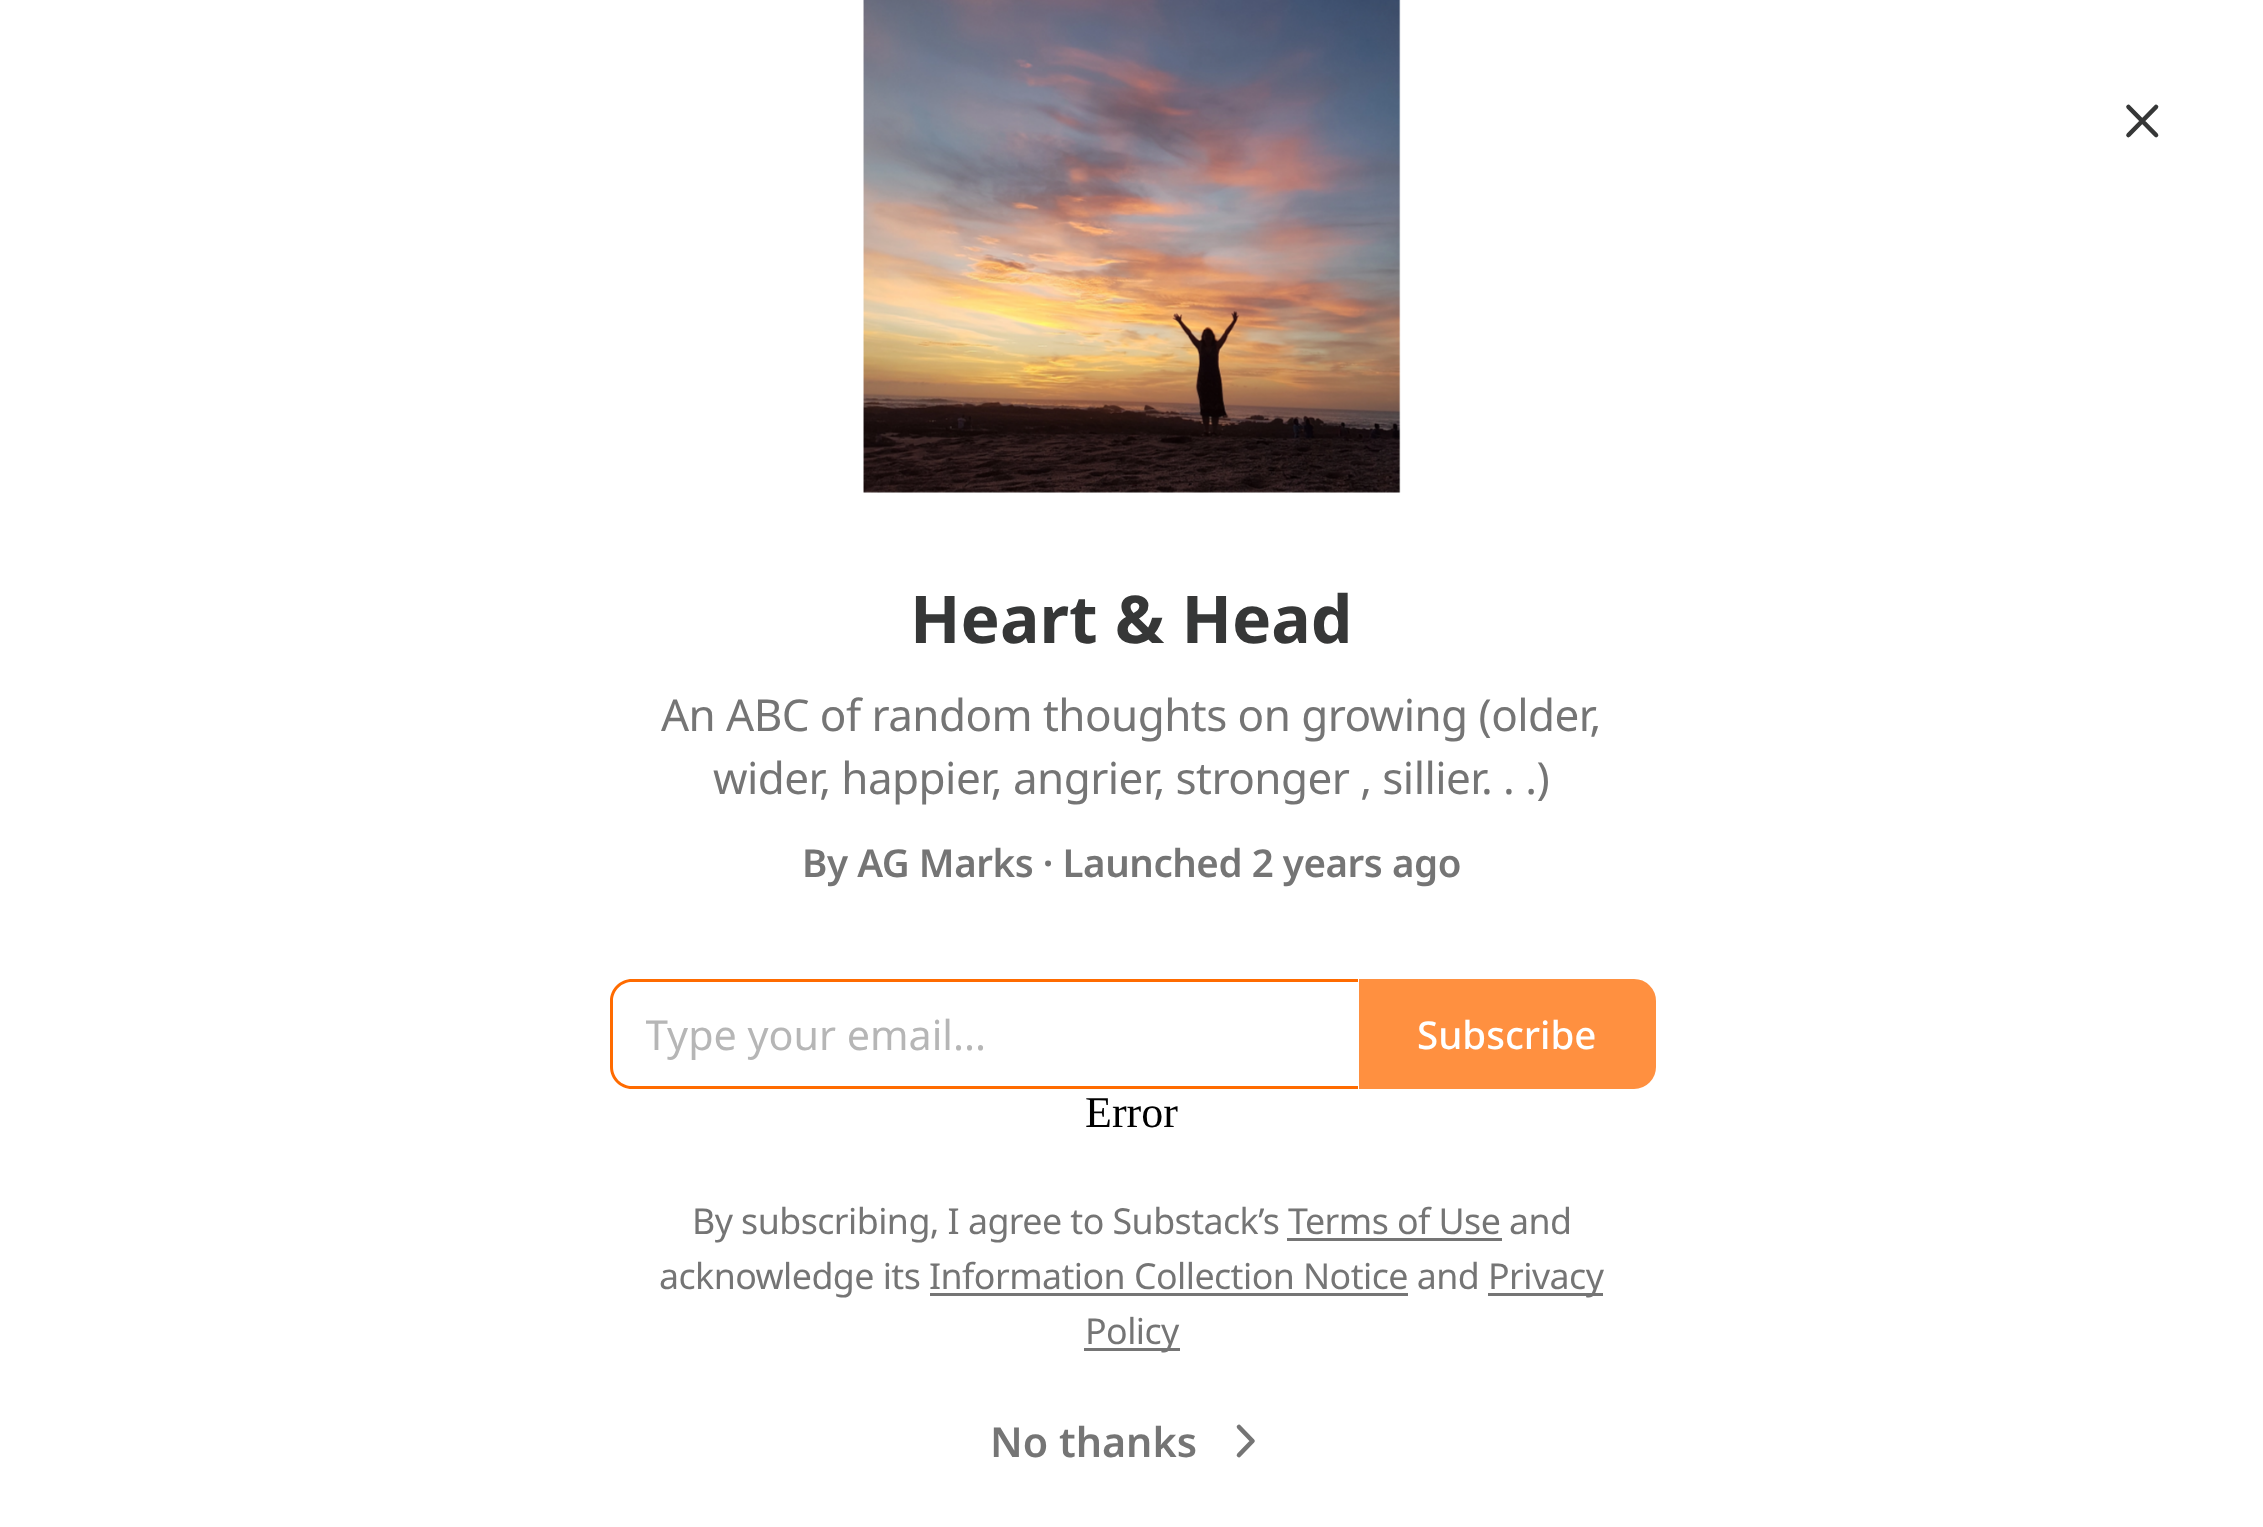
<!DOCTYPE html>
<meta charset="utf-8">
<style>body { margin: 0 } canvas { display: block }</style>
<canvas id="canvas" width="2263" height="1527"></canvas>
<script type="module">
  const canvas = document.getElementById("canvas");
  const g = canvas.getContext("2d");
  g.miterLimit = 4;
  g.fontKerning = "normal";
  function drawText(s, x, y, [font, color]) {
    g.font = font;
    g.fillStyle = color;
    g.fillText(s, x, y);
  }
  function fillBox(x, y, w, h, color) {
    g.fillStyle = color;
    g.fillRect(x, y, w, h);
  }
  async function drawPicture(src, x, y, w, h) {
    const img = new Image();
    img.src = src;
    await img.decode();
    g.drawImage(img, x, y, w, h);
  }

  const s1 = ["bold 66px Noto Sans", "#363737"];
  const s2 = ["44px Noto Sans", "#757575"];
  const s3 = ["600 38.5px Noto Sans", "#757575"];
  const s4 = ["41.25px Noto Sans", "#B6B6B6"];
  const s5 = ["500 38.5px Noto Sans", "#FFFFFF"];
  const s6 = ["44px Liberation Serif", "#000000"];
  const s7 = ["35.75px Noto Sans", "#757575"];
  const s8 = ["600 41.25px Noto Sans", "#757575"];

  fillBox(0, 0, 2263, 1527, "#FFFFFF");
  await drawPicture("pic1.png", 863, 0, 538, 493);
  g.beginPath();
  g.moveTo(2156, 107);
  g.lineTo(2128.5, 135);
  g.moveTo(2128.5, 107);
  g.lineTo(2156, 135);
  g.strokeStyle = "#363737";
  g.lineWidth = 4.6;
  g.lineCap = "round";
  g.lineJoin = "round";
  g.stroke();
  drawText("Heart & Head", 910, 643, s1);
  g.letterSpacing = "-0.55px";
  drawText("An ABC of random thoughts on growing (older,", 661, 731, s2);
  drawText("wider, happier, angrier, stronger , sillier. . .)", 713, 794, s2);
  g.letterSpacing = "-0.45px";
  drawText("By AG Marks · Launched 2 years ago", 802, 877, s3);
  g.fillStyle = "#FF6B00";
  g.beginPath();
  g.moveTo(632, 979);
  g.lineTo(1358, 979);
  g.lineTo(1358, 1089);
  g.lineTo(632, 1089);
  g.bezierCurveTo(620, 1089, 610, 1079, 610, 1067);
  g.lineTo(610, 1001);
  g.bezierCurveTo(610, 989, 620, 979, 632, 979);
  g.closePath();
  g.moveTo(632, 982);
  g.lineTo(1358, 982);
  g.lineTo(1358, 1086);
  g.lineTo(632, 1086);
  g.bezierCurveTo(622, 1086, 613, 1078, 613, 1067);
  g.lineTo(613, 1001);
  g.bezierCurveTo(613, 990, 622, 982, 632, 982);
  g.closePath();
  g.fill("evenodd");
  g.save();
  g.beginPath();
  g.rect(646, 1007, 680, 55);
  g.clip();
  g.letterSpacing = "0px";
  drawText("Type your email...", 645, 1050, s4);
  g.restore();
  g.fillStyle = "#FF9040";
  g.beginPath();
  g.roundRect(1360.5, 980.5, 294, 107, [0, 20.5, 20.5, 0]);
  g.fill();
  g.strokeStyle = "#FF9040";
  g.lineWidth = 3;
  g.lineJoin = "miter";
  g.stroke();
  g.letterSpacing = "0px";
  drawText("Subscribe", 1417, 1049, s5);
  drawText("Error", 1085, 1127, s6);
  g.letterSpacing = "-0.55px";
  drawText("By subscribing, I agree to Substack’s Terms of Use and", 692, 1234, s7);
  fillBox(1287, 1238, 215, 3, "#757575");
  drawText("acknowledge its Information Collection Notice and", 659, 1289, s7);
  fillBox(1488, 1293, 115, 3, "#757575");
  drawText("Privacy", 1488, 1289, s7);
  fillBox(930, 1293, 478, 3, "#757575");
  fillBox(1084, 1348, 96, 3, "#757575");
  drawText("Policy", 1085, 1344, s7);
  g.letterSpacing = "0px";
  drawText("No thanks", 990, 1457, s8);
  g.beginPath();
  g.moveTo(1239, 1455);
  g.lineTo(1252.5, 1441);
  g.lineTo(1239, 1427);
  g.strokeStyle = "#757575";
  g.lineWidth = 4.6;
  g.lineJoin = "round";
  g.stroke();
</script>
